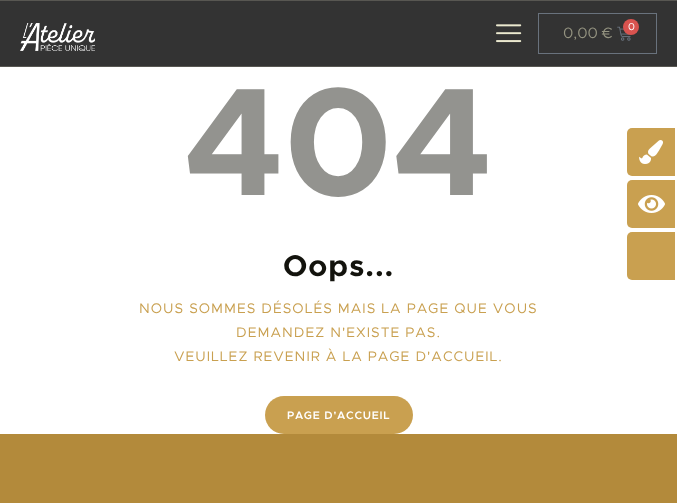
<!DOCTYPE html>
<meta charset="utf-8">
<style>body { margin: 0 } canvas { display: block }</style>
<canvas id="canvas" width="677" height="503"></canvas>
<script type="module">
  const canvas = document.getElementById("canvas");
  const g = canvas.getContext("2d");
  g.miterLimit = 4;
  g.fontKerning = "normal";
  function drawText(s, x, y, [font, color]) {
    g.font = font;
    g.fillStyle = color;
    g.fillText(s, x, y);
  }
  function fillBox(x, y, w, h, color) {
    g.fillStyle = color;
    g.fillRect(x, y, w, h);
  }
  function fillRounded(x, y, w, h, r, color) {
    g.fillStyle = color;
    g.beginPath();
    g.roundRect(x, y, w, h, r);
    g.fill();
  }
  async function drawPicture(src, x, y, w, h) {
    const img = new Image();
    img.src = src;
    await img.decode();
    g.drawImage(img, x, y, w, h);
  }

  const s1 = ["15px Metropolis", "#949380"];
  const s2 = ["10px Metropolis", "#FFFFFF"];
  const s3 = ["bold 154px Metropolis", "#93938F"];
  const s4 = ["bold 30px Metropolis", "#13130D"];
  const s5 = ["14px Metropolis", "#C9A050"];
  const s6 = ["600 11px Metropolis", "#FFFFFF"];

  fillBox(0, 0, 677, 503, "#FFFFFF");
  fillBox(0, 1, 677, 65, "#333333");
  fillBox(0, 0, 677, 1, "#585752");
  fillBox(0, 66, 677, 1, "#585752");
  await drawPicture("pic1.png", 20, 23, 75, 28);
  await drawPicture("pic2.png", 496, 24, 26, 19);
  g.strokeStyle = "#69727D";
  g.strokeRect(538.5, 13.5, 118, 40);
  drawText("0,00 €", 563, 38, s1);
  await drawPicture("pic3.png", 617, 26, 14, 15);
  g.fillStyle = "#D9534F";
  g.beginPath();
  g.arc(631, 27, 8, 0, Math.PI * 2);
  g.fill();
  drawText("0", 628, 30, s2);
  drawText("404", 184, 195, s3);
  g.letterSpacing = "1px";
  drawText("Oops...", 283, 276, s4);
  drawText("NOUS SOMMES DÉSOLÉS MAIS LA PAGE QUE VOUS", 139, 313, s5);
  drawText("DEMANDEZ N'EXISTE PAS.", 236, 337, s5);
  drawText("VEUILLEZ REVENIR À LA PAGE D'ACCUEIL.", 174, 361, s5);
  fillRounded(265, 396, 148, 38, 19, "#C9A050");
  g.letterSpacing = "0.75px";
  drawText("PAGE D'ACCUEIL", 287, 419, s6);
  fillBox(0, 434, 677, 69, "#B38A3B");
  g.fillStyle = "#C9A050";
  g.beginPath();
  g.roundRect(627, 128, 48, 48, [5, 0, 0, 5]);
  g.fill();
  await drawPicture("pic4.png", 639, 140, 24, 24);
  g.beginPath();
  g.roundRect(627, 180, 48, 48, [5, 0, 0, 5]);
  g.fill();
  await drawPicture("pic5.png", 638, 195, 27, 18);
  g.beginPath();
  g.roundRect(627, 232, 48, 48, [5, 0, 0, 5]);
  g.fill();
</script>
